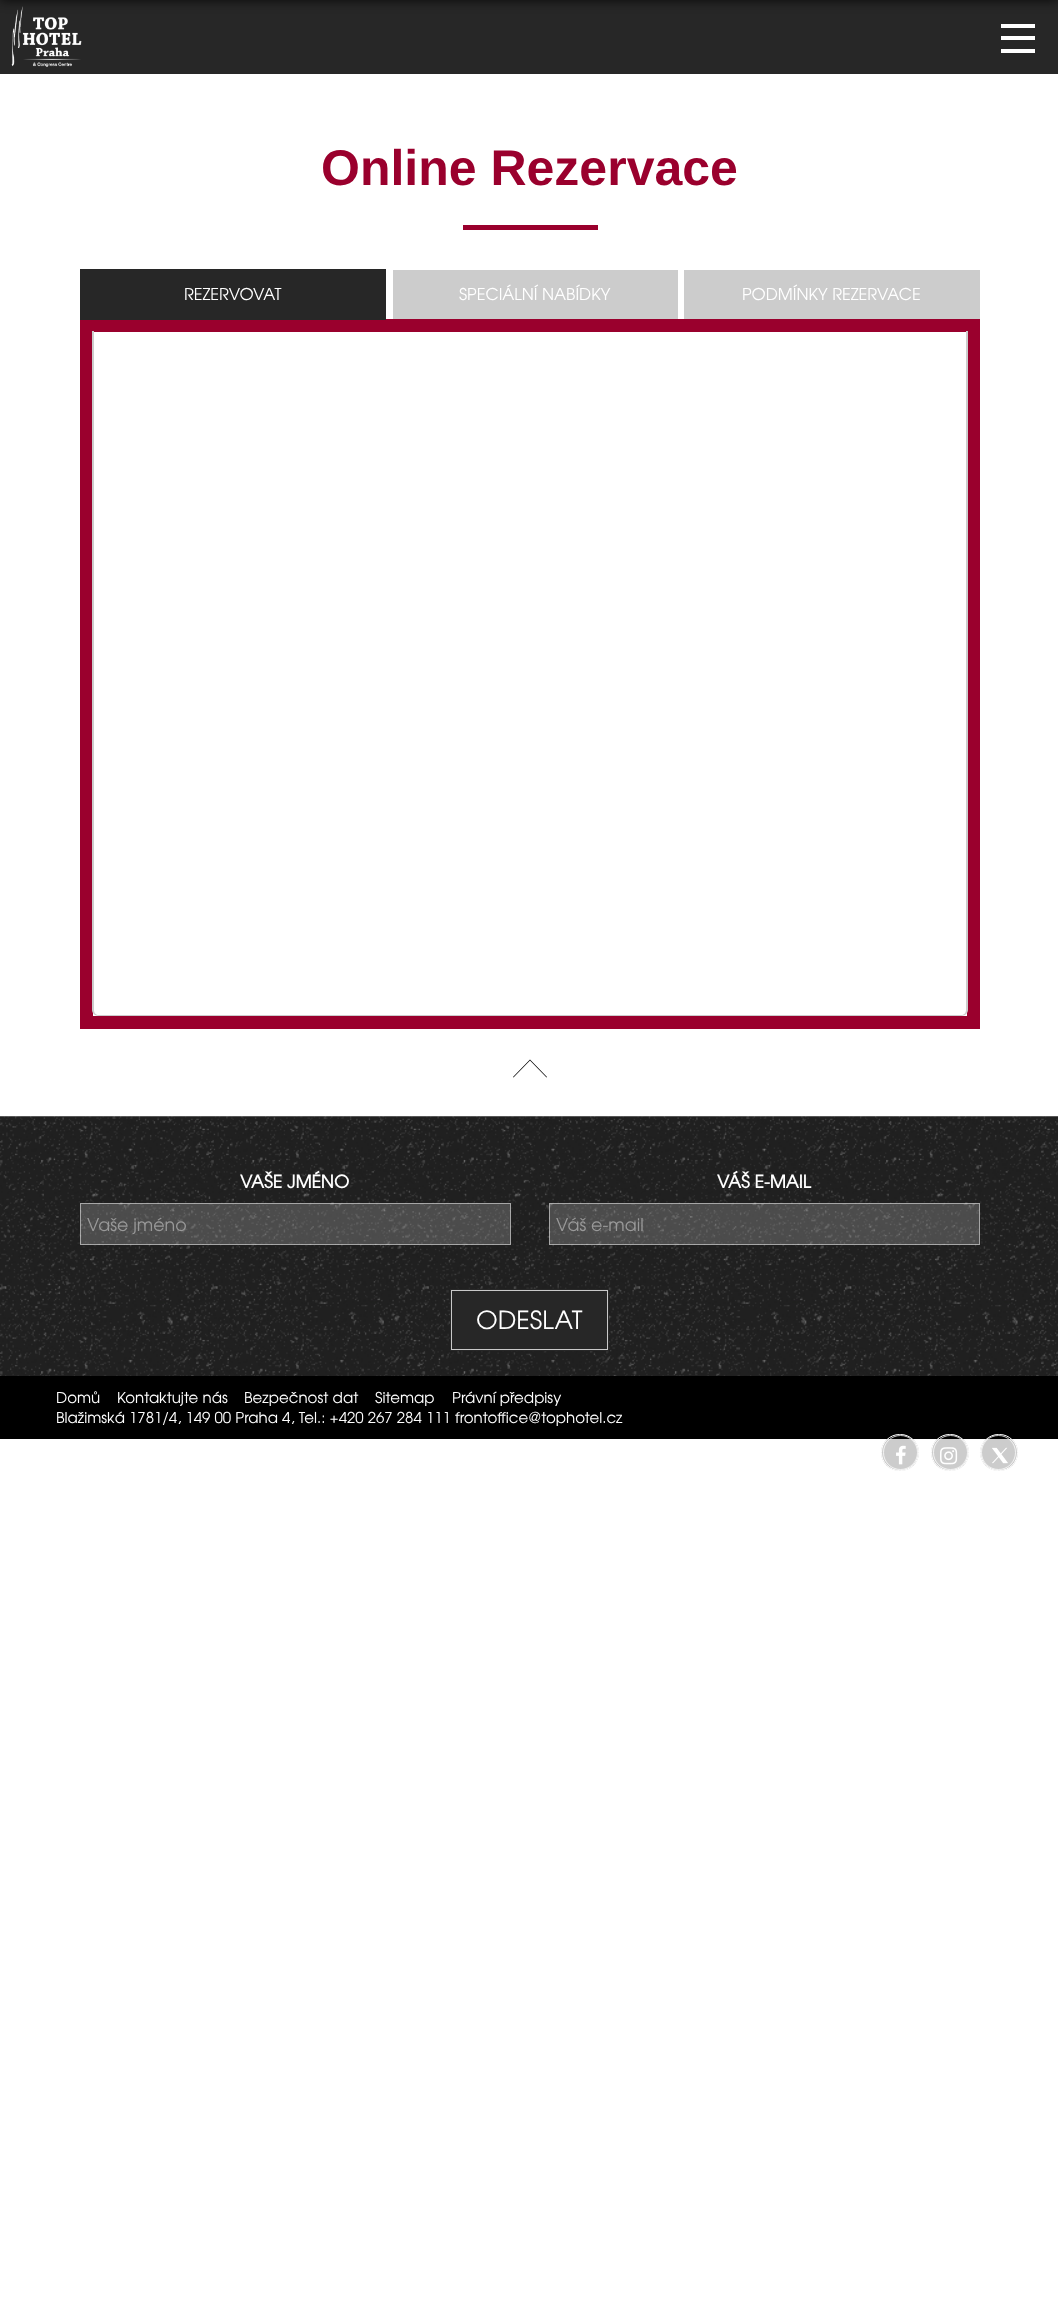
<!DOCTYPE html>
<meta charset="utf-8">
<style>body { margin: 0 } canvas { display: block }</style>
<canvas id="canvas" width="1058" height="2316"></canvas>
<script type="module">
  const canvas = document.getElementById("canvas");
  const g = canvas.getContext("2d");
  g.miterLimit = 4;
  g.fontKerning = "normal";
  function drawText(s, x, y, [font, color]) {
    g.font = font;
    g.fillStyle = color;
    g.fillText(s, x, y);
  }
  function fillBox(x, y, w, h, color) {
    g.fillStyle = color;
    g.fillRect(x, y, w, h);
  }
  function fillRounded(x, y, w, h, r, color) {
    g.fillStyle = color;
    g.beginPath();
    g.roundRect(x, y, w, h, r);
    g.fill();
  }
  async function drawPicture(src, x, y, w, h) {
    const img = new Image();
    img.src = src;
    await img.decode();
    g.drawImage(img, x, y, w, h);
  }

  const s1 = ["bold 50px Liberation Sans", "#9A002D"];
  const s2 = ["16.25px TeX Gyre Adventor", "#FFFFFF"];
  const s3 = ["bold 17.5px TeX Gyre Adventor", "#FFFFFF"];
  const s4 = ["17.5px TeX Gyre Adventor", "#999999"];
  const s5 = ["25px TeX Gyre Adventor", "#FFFFFF"];
  const s6 = ["15px TeX Gyre Adventor", "#FFFFFF"];

  fillBox(0, 0, 1058, 2316, "#FFFFFF");
  fillBox(0, 0, 1058, 74, "#272727");
  fillBox(1001, 24, 34, 4, "#FFFFFF");
  fillBox(1001, 36, 34, 4, "#FFFFFF");
  fillBox(1001, 49, 34, 4, "#FFFFFF");
  await drawPicture("pic1.png", 11, 6, 71, 61);
  g.fillStyle = "rgba(0, 0, 0, 0.8)";
  g.filter = "blur(6px)";
  g.beginPath();
  g.rect(0, -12, 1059, 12);
  g.fill();
  g.filter = "none";
  drawText("Online Rezervace", 321, 185, s1);
  fillBox(463, 225, 135, 5, "#9A002D");
  g.strokeStyle = "#9A002D";
  g.lineWidth = 13;
  g.strokeRect(86.5, 325.5, 887, 697);
  fillBox(80, 269, 306, 51, "#272727");
  drawText("REZERVOVAT", 184, 300, s2);
  fillBox(393, 270, 285, 49, "#CCCCCC");
  drawText("SPECIÁLNÍ NABÍDKY", 459, 300, s2);
  fillBox(684, 270, 296, 49, "#CCCCCC");
  drawText("PODMÍNKY REZERVACE", 742, 300, s2);
  g.fillStyle = "#CCCCCC";
  g.beginPath();
  g.moveTo(92, 331);
  g.lineTo(968, 331);
  g.lineTo(968, 1010);
  g.bezierCurveTo(968, 1013, 965, 1016, 961, 1016);
  g.lineTo(99, 1016);
  g.bezierCurveTo(95, 1016, 92, 1013, 92, 1010);
  g.closePath();
  g.moveTo(94, 331);
  g.lineTo(966, 331);
  g.lineTo(966, 1010);
  g.bezierCurveTo(966, 1013, 964, 1015, 961, 1015);
  g.lineTo(99, 1015);
  g.bezierCurveTo(96, 1015, 94, 1013, 94, 1010);
  g.closePath();
  g.fill("evenodd");
  await drawPicture("pic2.png", 0, 1116, 1058, 260);
  g.fillStyle = "#000000";
  g.beginPath();
  g.moveTo(530, 1059.5);
  g.lineTo(513, 1077);
  g.lineTo(513.5, 1077.5);
  g.lineTo(530, 1060.5);
  g.lineTo(546.5, 1077.5);
  g.lineTo(547, 1077);
  g.closePath();
  g.fill();
  drawText("VAŠE JMÉNO", 240, 1188, s3);
  fillBox(80, 1203, 431, 42, "rgba(255, 255, 255, 0.2)");
  g.strokeStyle = "rgba(255, 255, 255, 0.5)";
  g.lineWidth = 1;
  g.strokeRect(80.5, 1203.5, 430, 41);
  drawText("Vaše jméno", 87, 1231, s4);
  drawText("VÁŠ E-MAIL", 717, 1188, s3);
  fillBox(549, 1203, 431, 42, "rgba(255, 255, 255, 0.2)");
  g.strokeRect(549.5, 1203.5, 430, 41);
  drawText("Váš e-mail", 556, 1231, s4);
  fillBox(450, 1289, 159, 62, "#272727");
  g.strokeStyle = "#C9C9C9";
  g.strokeRect(451.5, 1290.5, 156, 59);
  drawText("ODESLAT", 476, 1329, s5);
  fillBox(0, 1376, 1058, 63, "#000000");
  drawText("Domů", 56, 1403, s6);
  drawText("Kontaktujte nás", 117, 1403, s6);
  drawText("Bezpečnost dat", 244, 1403, s6);
  drawText("Sitemap", 375, 1403, s6);
  drawText("Právní předpisy", 452, 1403, s6);
  drawText("Blažimská 1781/4, 149 00 Praha 4, Tel.: +420 267 284 111 frontoffice@tophotel.cz", 56, 1423, s6);
  fillRounded(881, 1434, 38, 37, 18.5, "rgba(0, 0, 0, 0.2)");
  g.beginPath();
  g.arc(900.5, 1452.5, 17, 0, Math.PI * 2);
  g.strokeStyle = "rgba(255, 255, 255, 0.75)";
  g.stroke();
  g.beginPath();
  g.roundRect(881.5, 1434.5, 37, 36, 18);
  g.strokeStyle = "#FFFFFF";
  g.stroke();
  await drawPicture("pic3.png", 896, 1445, 10, 20);
  fillRounded(931, 1434, 38, 37, 18.5, "rgba(0, 0, 0, 0.2)");
  g.beginPath();
  g.arc(950.5, 1452.5, 17, 0, Math.PI * 2);
  g.strokeStyle = "rgba(255, 255, 255, 0.75)";
  g.stroke();
  g.beginPath();
  g.roundRect(931.5, 1434.5, 37, 36, 18);
  g.strokeStyle = "#FFFFFF";
  g.stroke();
  await drawPicture("pic4.png", 940, 1447, 18, 18);
  fillRounded(980, 1434, 38, 37, 18.5, "rgba(0, 0, 0, 0.2)");
  g.beginPath();
  g.arc(998.5, 1452.5, 17, 0, Math.PI * 2);
  g.strokeStyle = "rgba(255, 255, 255, 0.75)";
  g.stroke();
  g.beginPath();
  g.roundRect(980.5, 1434.5, 37, 36, 18);
  g.strokeStyle = "#FFFFFF";
  g.stroke();
  await drawPicture("pic5.png", 992, 1447, 16, 17);
</script>
